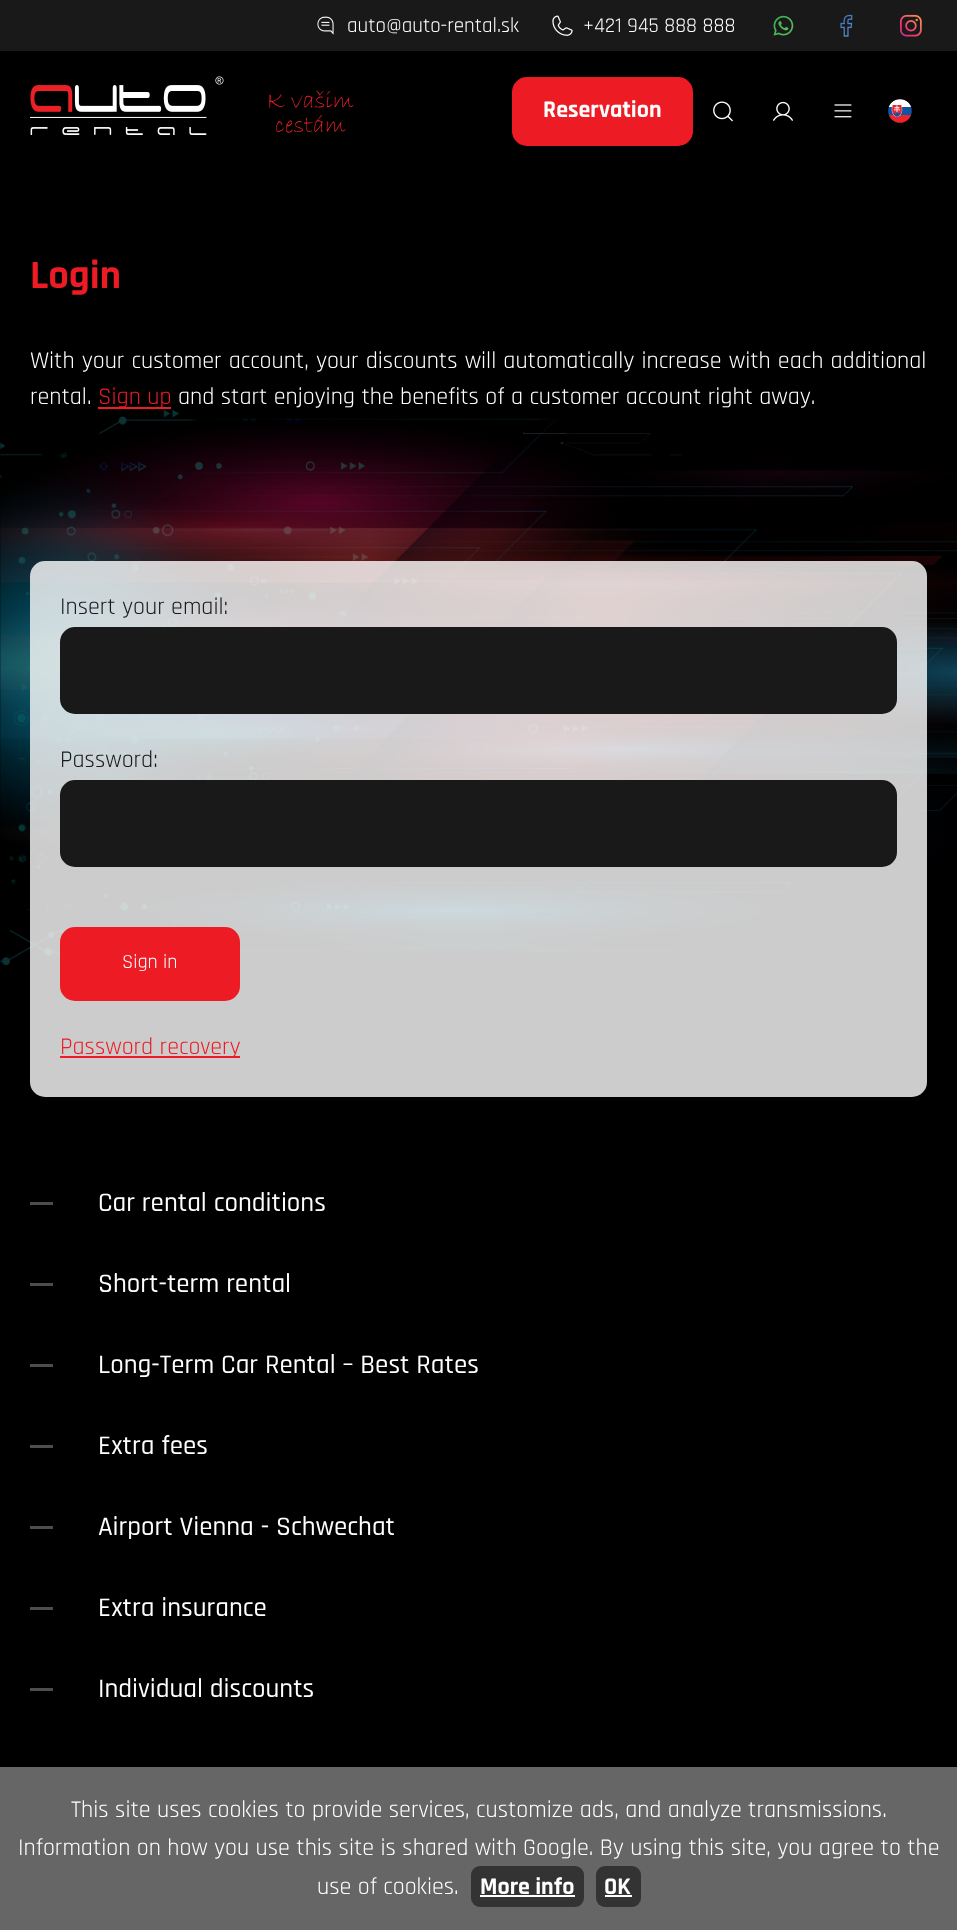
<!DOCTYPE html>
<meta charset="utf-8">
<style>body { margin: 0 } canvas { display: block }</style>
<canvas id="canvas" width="957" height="1930"></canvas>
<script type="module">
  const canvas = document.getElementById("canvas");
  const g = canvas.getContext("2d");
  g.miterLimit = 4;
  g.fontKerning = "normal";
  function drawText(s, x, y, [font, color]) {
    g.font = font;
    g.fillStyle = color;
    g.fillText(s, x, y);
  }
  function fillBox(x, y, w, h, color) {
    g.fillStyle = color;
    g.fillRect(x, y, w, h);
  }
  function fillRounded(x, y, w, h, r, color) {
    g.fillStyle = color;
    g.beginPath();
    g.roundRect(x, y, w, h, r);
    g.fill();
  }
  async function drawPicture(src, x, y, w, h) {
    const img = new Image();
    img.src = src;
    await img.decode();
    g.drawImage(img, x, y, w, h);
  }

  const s1 = ["21px Rajdhani", "#FFFFFF"];
  const s2 = ["bold 24px Rajdhani", "#FFFFFF"];
  const s3 = ["bold 40.5px Rajdhani", "#ED1C24"];
  const s4 = ["24px Rajdhani", "#FFFFFF"];
  const s5 = ["24px Rajdhani", "#ED1C24"];
  const s6 = ["24px Rajdhani", "#191919"];
  const s7 = ["20px Rajdhani", "#FFFFFF"];
  const s8 = ["500 27px Rajdhani", "#FFFFFF"];

  fillBox(0, 0, 957, 1930, "#000000");
  fillBox(0, 0, 957, 51, "#191919");
  await drawPicture("pic1.png", 317, 16, 17, 19);
  drawText("auto@auto-rental.sk", 347, 32, s1);
  await drawPicture("pic2.png", 552, 15, 21, 21);
  drawText("+421 945 888 888", 583, 32, s1);
  await drawPicture("pic3.png", 773, 15, 21, 21);
  await drawPicture("pic4.png", 840, 14, 13, 23);
  await drawPicture("pic5.png", 900, 14, 22, 23);
  await drawPicture("pic6.png", 30, 76, 194, 59);
  await drawPicture("pic7.png", 269, 90, 85, 43);
  g.fillStyle = "#ED1C24";
  g.beginPath();
  g.roundRect(513, 78, 179, 67, 14);
  g.fill();
  g.strokeStyle = "#ED1C24";
  g.lineWidth = 2;
  g.stroke();
  drawText("Reservation", 543, 117, s2);
  await drawPicture("pic8.png", 713, 101, 20, 21);
  await drawPicture("pic9.png", 773, 101, 20, 20);
  await drawPicture("pic10.png", 834, 104, 18, 14);
  await drawPicture("pic11.png", 888, 99, 24, 24);
  await drawPicture("pic12.png", 0, 409, 957, 557);
  drawText("Login", 30, 288, s3);
  g.wordSpacing = "0.75px";
  drawText("With your customer account, your discounts will automatically increase with each additional", 30, 368, s4);
  g.wordSpacing = "0px";
  drawText("rental.", 30, 404, s4);
  fillBox(98, 407, 73, 2, "#ED1C24");
  drawText("Sign up", 98, 404, s5);
  drawText("and start enjoying the benefits of a customer account right away.", 178, 404, s4);
  fillRounded(30, 561, 897, 536, 15, "rgba(255, 255, 255, 0.8)");
  drawText("Insert your email:", 60, 614, s6);
  g.beginPath();
  g.roundRect(61, 628, 835, 85, 14);
  g.fill();
  g.strokeStyle = "#191919";
  g.stroke();
  drawText("Password:", 60, 767, s6);
  g.beginPath();
  g.roundRect(61, 781, 835, 85, 14);
  g.fill();
  g.stroke();
  g.fillStyle = "#ED1C24";
  g.beginPath();
  g.roundRect(61, 928, 178, 72, 14);
  g.fill();
  g.strokeStyle = "#ED1C24";
  g.stroke();
  drawText("Sign in", 122, 968, s7);
  fillBox(60, 1056, 180, 2, "#ED1C24");
  drawText("Password recovery", 60, 1054, s5);
  fillBox(30, 1202, 23, 3, "#4D4D4D");
  drawText("Car rental conditions", 98, 1211, s8);
  fillBox(30, 1283, 23, 3, "#4D4D4D");
  drawText("Short-term rental", 98, 1292, s8);
  fillBox(30, 1364, 23, 3, "#4D4D4D");
  drawText("Long-Term Car Rental – Best Rates", 98, 1373, s8);
  fillBox(30, 1445, 23, 3, "#4D4D4D");
  drawText("Extra fees", 98, 1454, s8);
  fillBox(30, 1526, 23, 3, "#4D4D4D");
  drawText("Airport Vienna - Schwechat", 98, 1535, s8);
  fillBox(30, 1607, 23, 3, "#4D4D4D");
  drawText("Extra insurance", 98, 1616, s8);
  fillBox(30, 1688, 23, 3, "#4D4D4D");
  drawText("Individual discounts", 98, 1697, s8);
  fillBox(0, 1767, 957, 163, "#666666");
  drawText("This site uses cookies to provide services, customize ads, and analyze transmissions.", 71, 1817, s4);
  drawText("Information on how you use this site is shared with Google. By using this site, you agree to the", 18, 1855, s4);
  drawText("use of cookies.", 317, 1894, s4);
  fillRounded(471, 1866, 113, 41, 9, "#333333");
  drawText("More info", 480, 1894, s2);
  fillBox(480, 1895, 95, 2, "#FFFFFF");
  fillRounded(596, 1866, 45, 41, 9, "#333333");
  drawText("OK", 604, 1894, s2);
  fillBox(605, 1895, 27, 2, "#FFFFFF");
</script>
